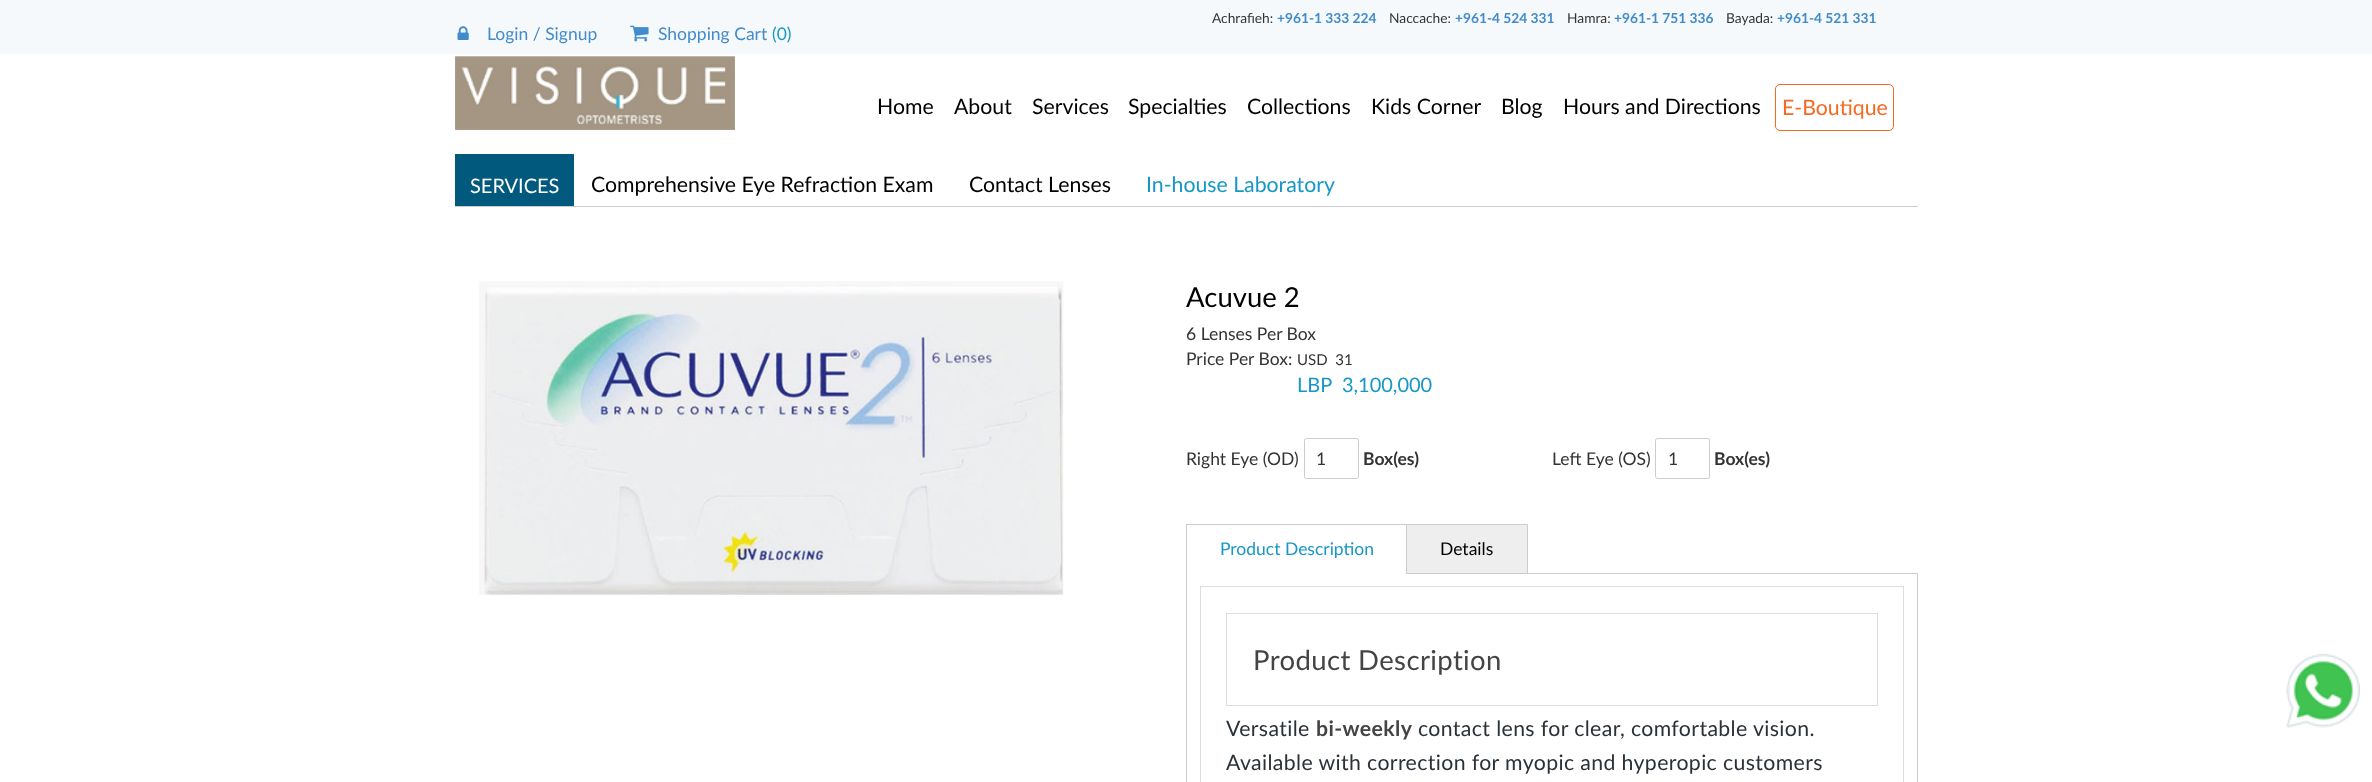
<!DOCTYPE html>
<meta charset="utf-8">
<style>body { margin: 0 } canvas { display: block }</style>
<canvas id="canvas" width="2372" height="782"></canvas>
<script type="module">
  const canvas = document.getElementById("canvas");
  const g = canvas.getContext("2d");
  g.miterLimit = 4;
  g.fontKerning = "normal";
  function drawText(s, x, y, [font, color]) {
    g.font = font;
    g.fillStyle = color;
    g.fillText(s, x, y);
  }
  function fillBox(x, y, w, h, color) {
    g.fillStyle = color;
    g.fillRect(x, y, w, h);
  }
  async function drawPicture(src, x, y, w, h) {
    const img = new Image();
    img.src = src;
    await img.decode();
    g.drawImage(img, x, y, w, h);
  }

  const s1 = ["13.75px Lato", "#333333"];
  const s2 = ["bold 13.75px Lato", "#428BCA"];
  const s3 = ["17.5px Lato", "#428BCA"];
  const s4 = ["17.5px Lato", "#1797C6"];
  const s5 = ["21.25px Lato", "#000000"];
  const s6 = ["21.25px Lato", "#F46A21"];
  const s7 = ["20px Lato", "#FFFFFF"];
  const s8 = ["21.25px Lato", "#1797C6"];
  const s9 = ["27.5px Lato", "#000000"];
  const s10 = ["17.5px Lato", "#333333"];
  const s11 = ["15px Lato", "#333333"];
  const s12 = ["20px Lato", "#1797C6"];
  const s13 = ["bold 17.5px Lato", "#333333"];
  const s14 = ["17.5px Lato", "#000000"];
  const s15 = ["27.5px Lato", "#444444"];
  const s16 = ["21.25px Lato", "#2A3138"];
  const s17 = ["bold 21.25px Lato", "#444444"];

  fillBox(0, 0, 2372, 782, "#FFFFFF");
  fillBox(0, 0, 2372, 54, "#F5F9FC");
  drawText("Achrafieh:", 1212, 23, s1);
  drawText("+961-1 333 224", 1277, 23, s2);
  drawText("Naccache:", 1389, 23, s1);
  drawText("+961-4 524 331", 1455, 23, s2);
  drawText("Hamra:", 1567, 23, s1);
  drawText("+961-1 751 336", 1614, 23, s2);
  drawText("Bayada:", 1726, 23, s1);
  drawText("+961-4 521 331", 1777, 23, s2);
  await drawPicture("pic1.png", 457, 26, 12, 14);
  drawText("Login / Signup", 487, 40, s3);
  await drawPicture("pic2.png", 630, 25, 19, 17);
  drawText("Shopping Cart", 658, 40, s3);
  drawText("(0)", 772, 40, s4);
  await drawPicture("pic3.png", 455, 56, 280, 74);
  drawText("Home", 877, 114, s5);
  drawText("About", 954, 114, s5);
  drawText("Services", 1032, 114, s5);
  drawText("Specialties", 1128, 114, s5);
  drawText("Collections", 1247, 114, s5);
  drawText("Kids Corner", 1371, 114, s5);
  drawText("Blog", 1501, 114, s5);
  drawText("Hours and Directions", 1563, 114, s5);
  g.beginPath();
  g.roundRect(1775.5, 84.5, 118, 46, 4.5);
  g.strokeStyle = "#F46A21";
  g.stroke();
  drawText("E-Boutique", 1782, 115, s6);
  fillBox(455, 206, 1463, 1, "#CCCCCC");
  fillBox(455, 154, 119, 52, "#015A7D");
  drawText("SERVICES", 470, 193, s7);
  drawText("Comprehensive Eye Refraction Exam", 591, 192, s5);
  drawText("Contact Lenses", 969, 192, s5);
  drawText("In-house Laboratory", 1146, 192, s8);
  await drawPicture("pic4.png", 478, 281, 586, 314);
  drawText("Acuvue 2", 1186, 307, s9);
  drawText("6 Lenses Per Box", 1186, 340, s10);
  drawText("Price Per Box:", 1186, 365, s10);
  drawText("USD  31", 1297, 365, s11);
  drawText("LBP  3,100,000", 1297, 392, s12);
  drawText("Right Eye (OD)", 1186, 465, s10);
  g.beginPath();
  g.roundRect(1304.5, 438.5, 54, 40, 2);
  g.strokeStyle = "#CCCCCC";
  g.stroke();
  drawText("1", 1316, 465, s10);
  drawText("Box(es)", 1363, 465, s13);
  drawText("Left Eye (OS)", 1552, 465, s10);
  g.beginPath();
  g.roundRect(1655.5, 438.5, 54, 40, 2);
  g.stroke();
  drawText("1", 1668, 465, s10);
  drawText("Box(es)", 1714, 465, s13);
  g.strokeRect(1186.5, 573.5, 731, 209);
  fillBox(1187, 573, 219, 1, "#FFFFFF");
  fillBox(1186, 524, 220, 1, "#CCCCCC");
  fillBox(1186, 524, 1, 50, "#CCCCCC");
  drawText("Product Description", 1220, 555, s4);
  g.fillStyle = "#EEEEEE";
  g.beginPath();
  g.rect(1406.5, 524.5, 121, 49);
  g.fill();
  g.stroke();
  drawText("Details", 1440, 555, s14);
  g.strokeStyle = "#DDDDDD";
  g.strokeRect(1200.5, 586.5, 703, 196);
  g.strokeRect(1226.5, 613.5, 651, 92);
  g.letterSpacing = "0.38px";
  drawText("Product Description", 1253, 670, s15);
  drawText("Versatile", 1226, 736, s16);
  drawText("bi-weekly", 1316, 736, s17);
  drawText("contact lens for clear, comfortable vision.", 1418, 736, s16);
  drawText("Available with correction for myopic and hyperopic customers", 1226, 770, s16);
  await drawPicture("pic5.png", 2286, 653, 74, 75);
</script>
